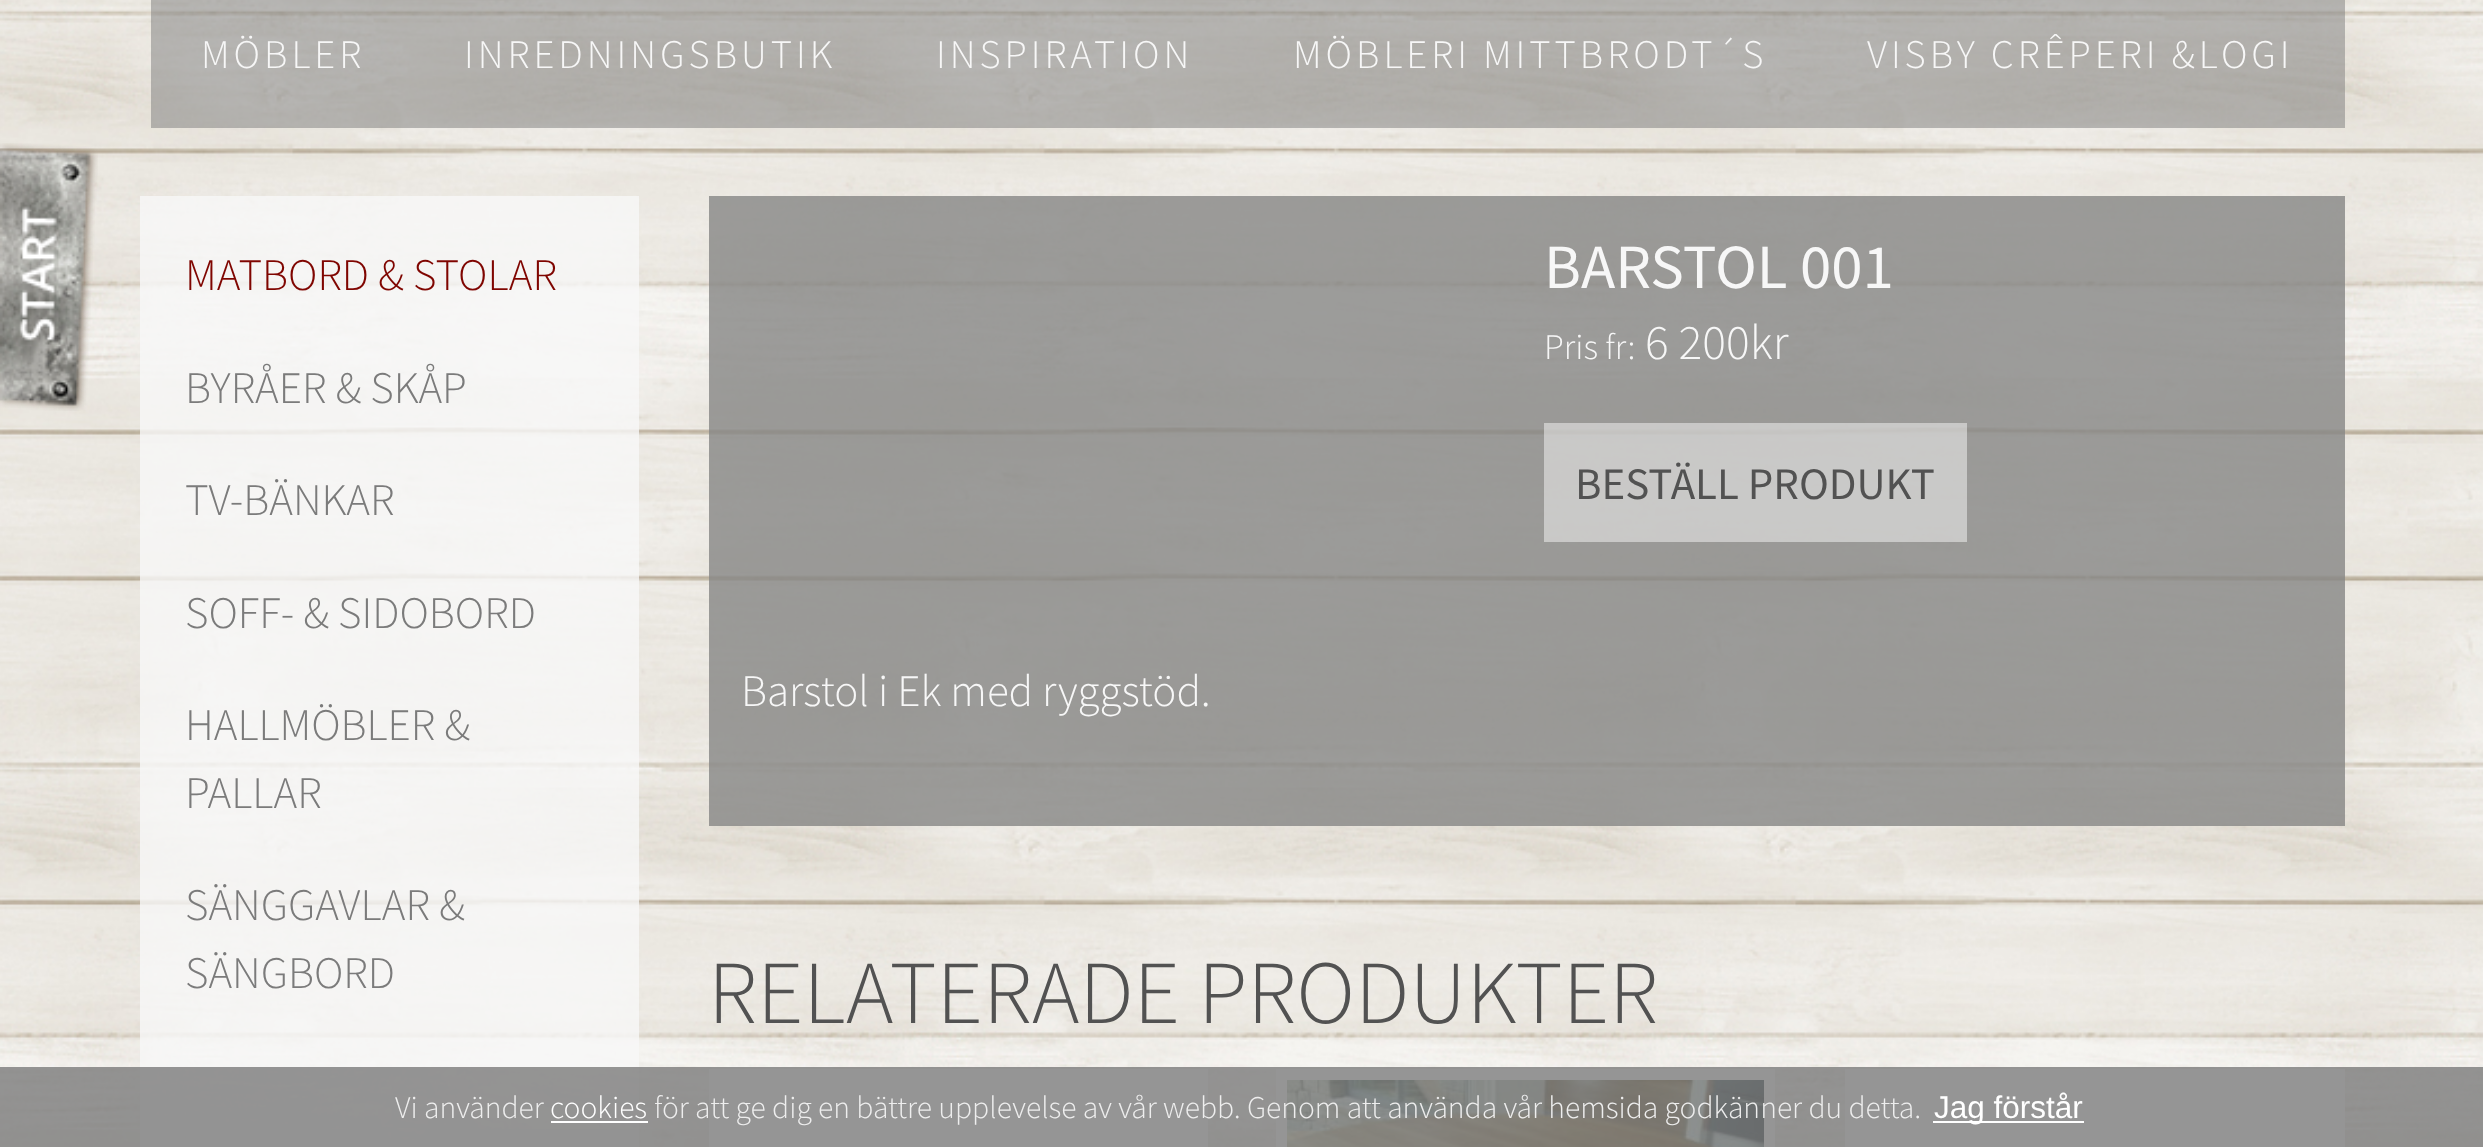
<!DOCTYPE html>
<meta charset="utf-8">
<style>body { margin: 0 } canvas { display: block }</style>
<canvas id="canvas" width="2483" height="1147"></canvas>
<script type="module">
  const canvas = document.getElementById("canvas");
  const g = canvas.getContext("2d");
  g.miterLimit = 4;
  g.fontKerning = "normal";
  function drawText(s, x, y, [font, color]) {
    g.font = font;
    g.fillStyle = color;
    g.fillText(s, x, y);
  }
  function fillBox(x, y, w, h, color) {
    g.fillStyle = color;
    g.fillRect(x, y, w, h);
  }
  async function drawPicture(src, x, y, w, h) {
    const img = new Image();
    img.src = src;
    await img.decode();
    g.drawImage(img, x, y, w, h);
  }

  const s1 = ["300 40.5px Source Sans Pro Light", "#F7F7F7"];
  const s2 = ["300 45px Source Sans Pro Light", "#7F0500"];
  const s3 = ["300 45px Source Sans Pro Light", "#7B7B7B"];
  const s4 = ["63px Source Sans Pro", "#F7F7F7"];
  const s5 = ["300 36px Source Sans Pro Light", "#F7F7F7"];
  const s6 = ["300 49.5px Source Sans Pro Light", "#F7F7F7"];
  const s7 = ["45px Source Sans Pro", "#525252"];
  const s8 = ["300 45px Source Sans Pro Light", "#F7F7F7"];
  const s9 = ["300 90px Source Sans Pro Light", "#525252"];
  const s10 = ["300 31.5px Source Sans Pro Light", "#EEEEEE"];
  const s11 = ["300 31.5px Source Sans Pro Light", "#FFFFFF"];
  const s12 = ["31.5px Liberation Sans", "#FFFFFF"];

  fillBox(0, 0, 2483, 1147, "#FFFFFF");
  await drawPicture("pic1.png", 0, 0, 2483, 1147);
  await drawPicture("pic2.png", 0, 143, 98, 268);
  fillBox(151, 0, 2194, 128, "rgba(123, 123, 123, 0.5)");
  g.letterSpacing = "4px";
  drawText("MÖBLER", 201, 68, s1);
  drawText("INREDNINGSBUTIK", 464, 68, s1);
  drawText("INSPIRATION", 936, 68, s1);
  drawText("MÖBLERI MITTBRODT´S", 1293, 68, s1);
  drawText("VISBY CRÊPERI &LOGI", 1867, 68, s1);
  fillBox(140, 196, 499, 951, "rgba(247, 247, 247, 0.8)");
  g.letterSpacing = "0px";
  drawText("MATBORD & STOLAR", 185, 290, s2);
  drawText("BYRÅER & SKÅP", 185, 403, s3);
  drawText("TV-BÄNKAR", 185, 515, s3);
  drawText("SOFF- & SIDOBORD", 185, 628, s3);
  drawText("HALLMÖBLER &", 185, 740, s3);
  drawText("PALLAR", 185, 808, s3);
  drawText("SÄNGGAVLAR &", 185, 920, s3);
  drawText("SÄNGBORD", 185, 988, s3);
  fillBox(709, 196, 1636, 630, "rgba(134, 134, 132, 0.8)");
  drawText("BARSTOL 001", 1544, 288, s4);
  drawText("Pris fr:", 1544, 359, s5);
  drawText("6 200kr", 1645, 359, s6);
  fillBox(1544, 423, 423, 119, "rgba(247, 247, 247, 0.5)");
  drawText("BESTÄLL PRODUKT", 1575, 499, s7);
  drawText("Barstol i Ek med ryggstöd.", 741, 706, s8);
  drawText("RELATERADE PRODUKTER", 708, 1023, s9);
  fillBox(709, 1069, 499, 78, "#FFFFFF");
  fillBox(1276, 1069, 499, 78, "#FFFFFF");
  await drawPicture("pic3.png", 1287, 1080, 477, 67);
  fillBox(1845, 1069, 500, 78, "#FFFFFF");
  fillBox(0, 1067, 2483, 80, "rgba(123, 123, 123, 0.8)");
  drawText("Vi använder", 395, 1118, s10);
  drawText("cookies", 550, 1118, s11);
  fillBox(551, 1121, 97, 2, "#FFFFFF");
  drawText("för att ge dig en bättre upplevelse av vår webb. Genom att använda vår hemsida godkänner du detta.", 654, 1118, s10);
  fillBox(1933, 1121, 151, 2, "#FFFFFF");
  drawText("Jag förstår", 1934, 1118, s12);
</script>
